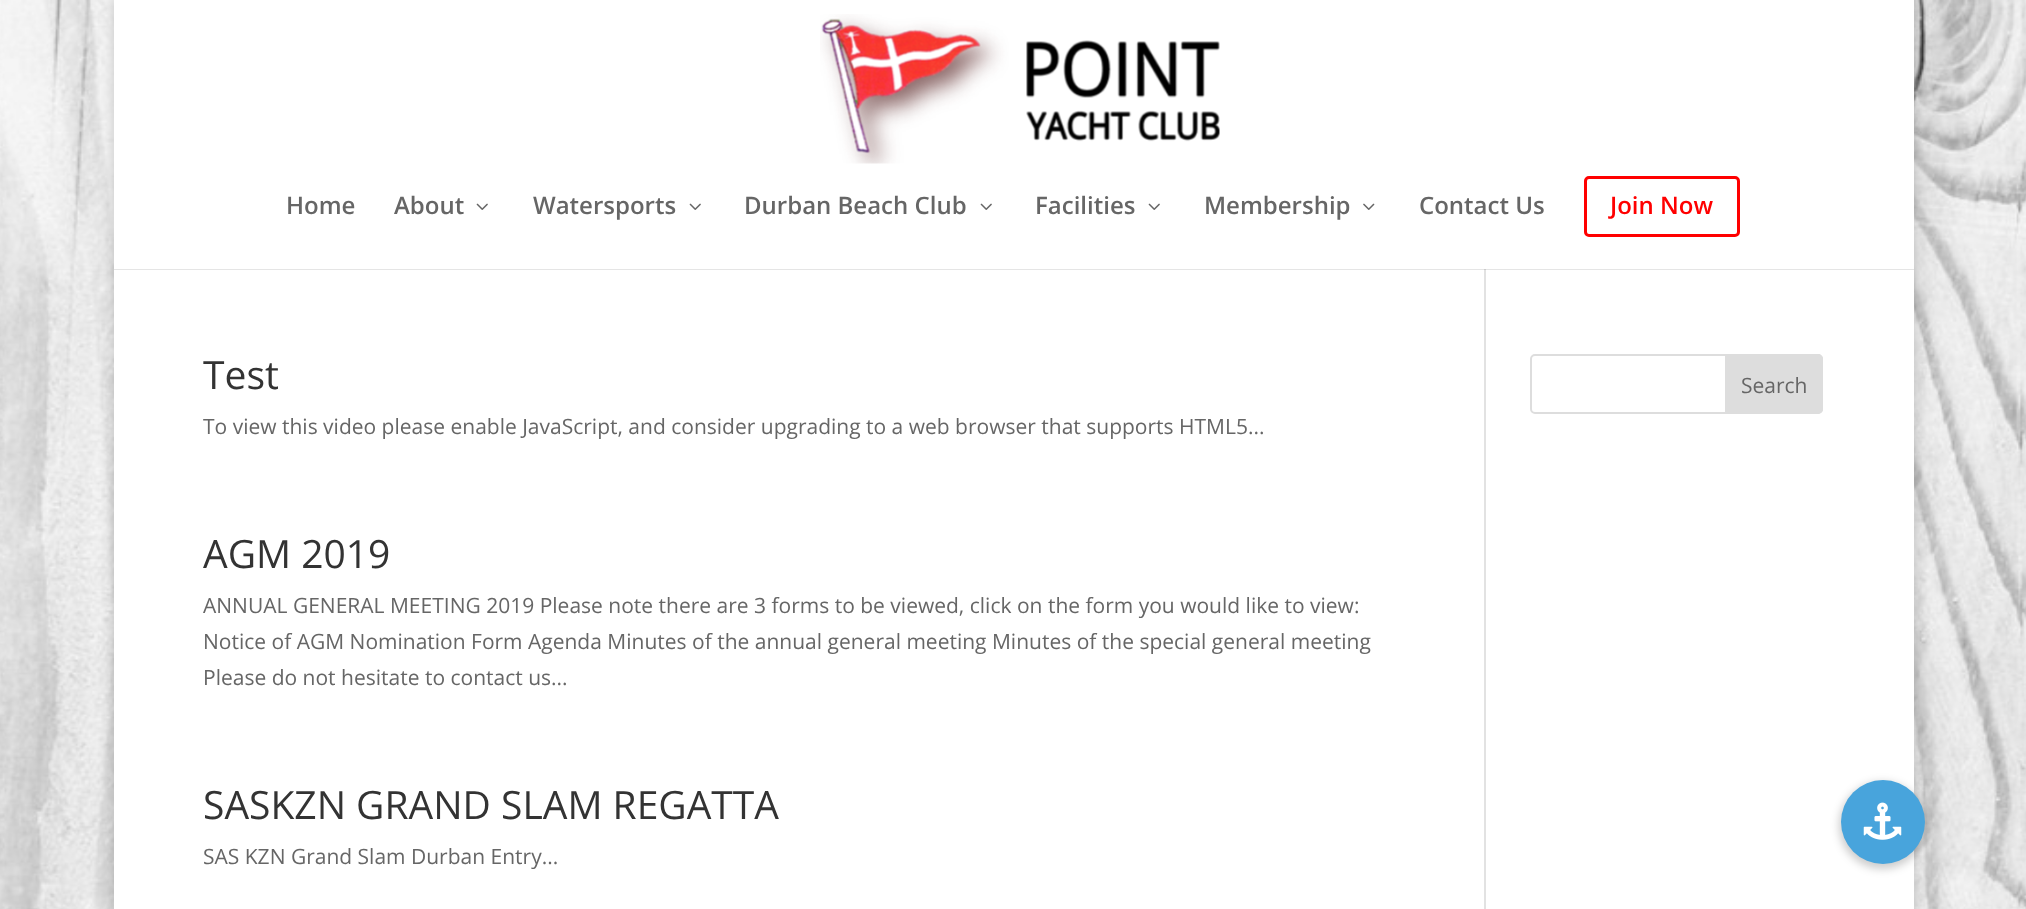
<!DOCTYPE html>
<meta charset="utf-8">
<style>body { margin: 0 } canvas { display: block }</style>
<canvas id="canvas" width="2026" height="909"></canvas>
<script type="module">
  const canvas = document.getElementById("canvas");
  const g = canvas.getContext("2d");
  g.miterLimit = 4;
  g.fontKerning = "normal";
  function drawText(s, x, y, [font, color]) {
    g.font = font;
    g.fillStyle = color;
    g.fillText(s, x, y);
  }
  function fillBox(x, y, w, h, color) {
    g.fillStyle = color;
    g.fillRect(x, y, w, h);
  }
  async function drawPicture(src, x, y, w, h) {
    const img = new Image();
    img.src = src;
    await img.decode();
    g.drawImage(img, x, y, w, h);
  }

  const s1 = ["600 24px Open Sans", "#666666"];
  const s2 = ["600 24px Open Sans", "#FF0000"];
  const s3 = ["39px Open Sans", "#333333"];
  const s4 = ["21px Open Sans", "#666666"];

  fillBox(0, 0, 2026, 909, "#FFFFFF");
  await drawPicture("pic1.png", 0, 0, 2026, 909);
  g.fillStyle = "rgba(0, 0, 0, 0.2)";
  g.filter = "blur(7.5px)";
  g.beginPath();
  g.rect(114, 0, 1800, 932);
  g.fill();
  g.filter = "none";
  fillBox(114, 269, 1800, 640, "#FFFFFF");
  fillBox(1484, 267, 2, 642, "#E2E2E2");
  fillBox(114, 269, 1800, 1, "rgba(0, 0, 0, 0.1)");
  fillBox(114, 0, 1800, 269, "#FFFFFF");
  await drawPicture("pic2.png", 820, 14, 400, 150);
  drawText("Home", 286, 214, s1);
  drawText("About", 394, 214, s1);
  await drawPicture("pic3.png", 476, 203, 12, 7);
  drawText("Watersports", 533, 214, s1);
  await drawPicture("pic3.png", 689, 203, 12, 7);
  drawText("Durban Beach Club", 744, 214, s1);
  await drawPicture("pic3.png", 980, 203, 12, 7);
  drawText("Facilities", 1035, 214, s1);
  await drawPicture("pic3.png", 1148, 203, 12, 7);
  drawText("Membership", 1204, 214, s1);
  await drawPicture("pic4.png", 1363, 203, 12, 7);
  drawText("Contact Us", 1419, 214, s1);
  g.beginPath();
  g.roundRect(1585.5, 177.5, 153, 58, 3.5);
  g.strokeStyle = "#FF0000";
  g.lineWidth = 3;
  g.stroke();
  drawText("Join Now", 1610, 214, s2);
  drawText("Test", 203, 389, s3);
  drawText("To view this video please enable JavaScript, and consider upgrading to a web browser that supports HTML5...", 203, 434, s4);
  drawText("AGM 2019", 203, 568, s3);
  drawText("ANNUAL GENERAL MEETING 2019 Please note there are 3 forms to be viewed, click on the form you would like to view:", 203, 613, s4);
  drawText("Notice of AGM Nomination Form Agenda Minutes of the annual general meeting Minutes of the special general meeting", 203, 649, s4);
  drawText("Please do not hesitate to contact us...", 203, 685, s4);
  drawText("SASKZN GRAND SLAM REGATTA", 203, 819, s3);
  drawText("SAS KZN Grand Slam Durban Entry...", 203, 864, s4);
  g.beginPath();
  g.roundRect(1531, 355, 291, 58, 4);
  g.strokeStyle = "#DDDDDD";
  g.lineWidth = 2;
  g.stroke();
  g.fillStyle = "#DDDDDD";
  g.beginPath();
  g.roundRect(1726, 355, 96, 58, [0, 4, 4, 0]);
  g.fill();
  g.stroke();
  drawText("Search", 1741, 393, s4);
  g.fillStyle = "rgba(0, 0, 0, 0.2)";
  g.filter = "blur(4.5px)";
  g.beginPath();
  g.roundRect(1839, 782, 87, 87, 43.5);
  g.fill();
  g.filter = "none";
  g.fillStyle = "#48A4DC";
  g.beginPath();
  g.arc(1883, 822, 42, 0, Math.PI * 2);
  g.fill();
  await drawPicture("pic5.png", 1863, 802, 39, 38);
</script>
